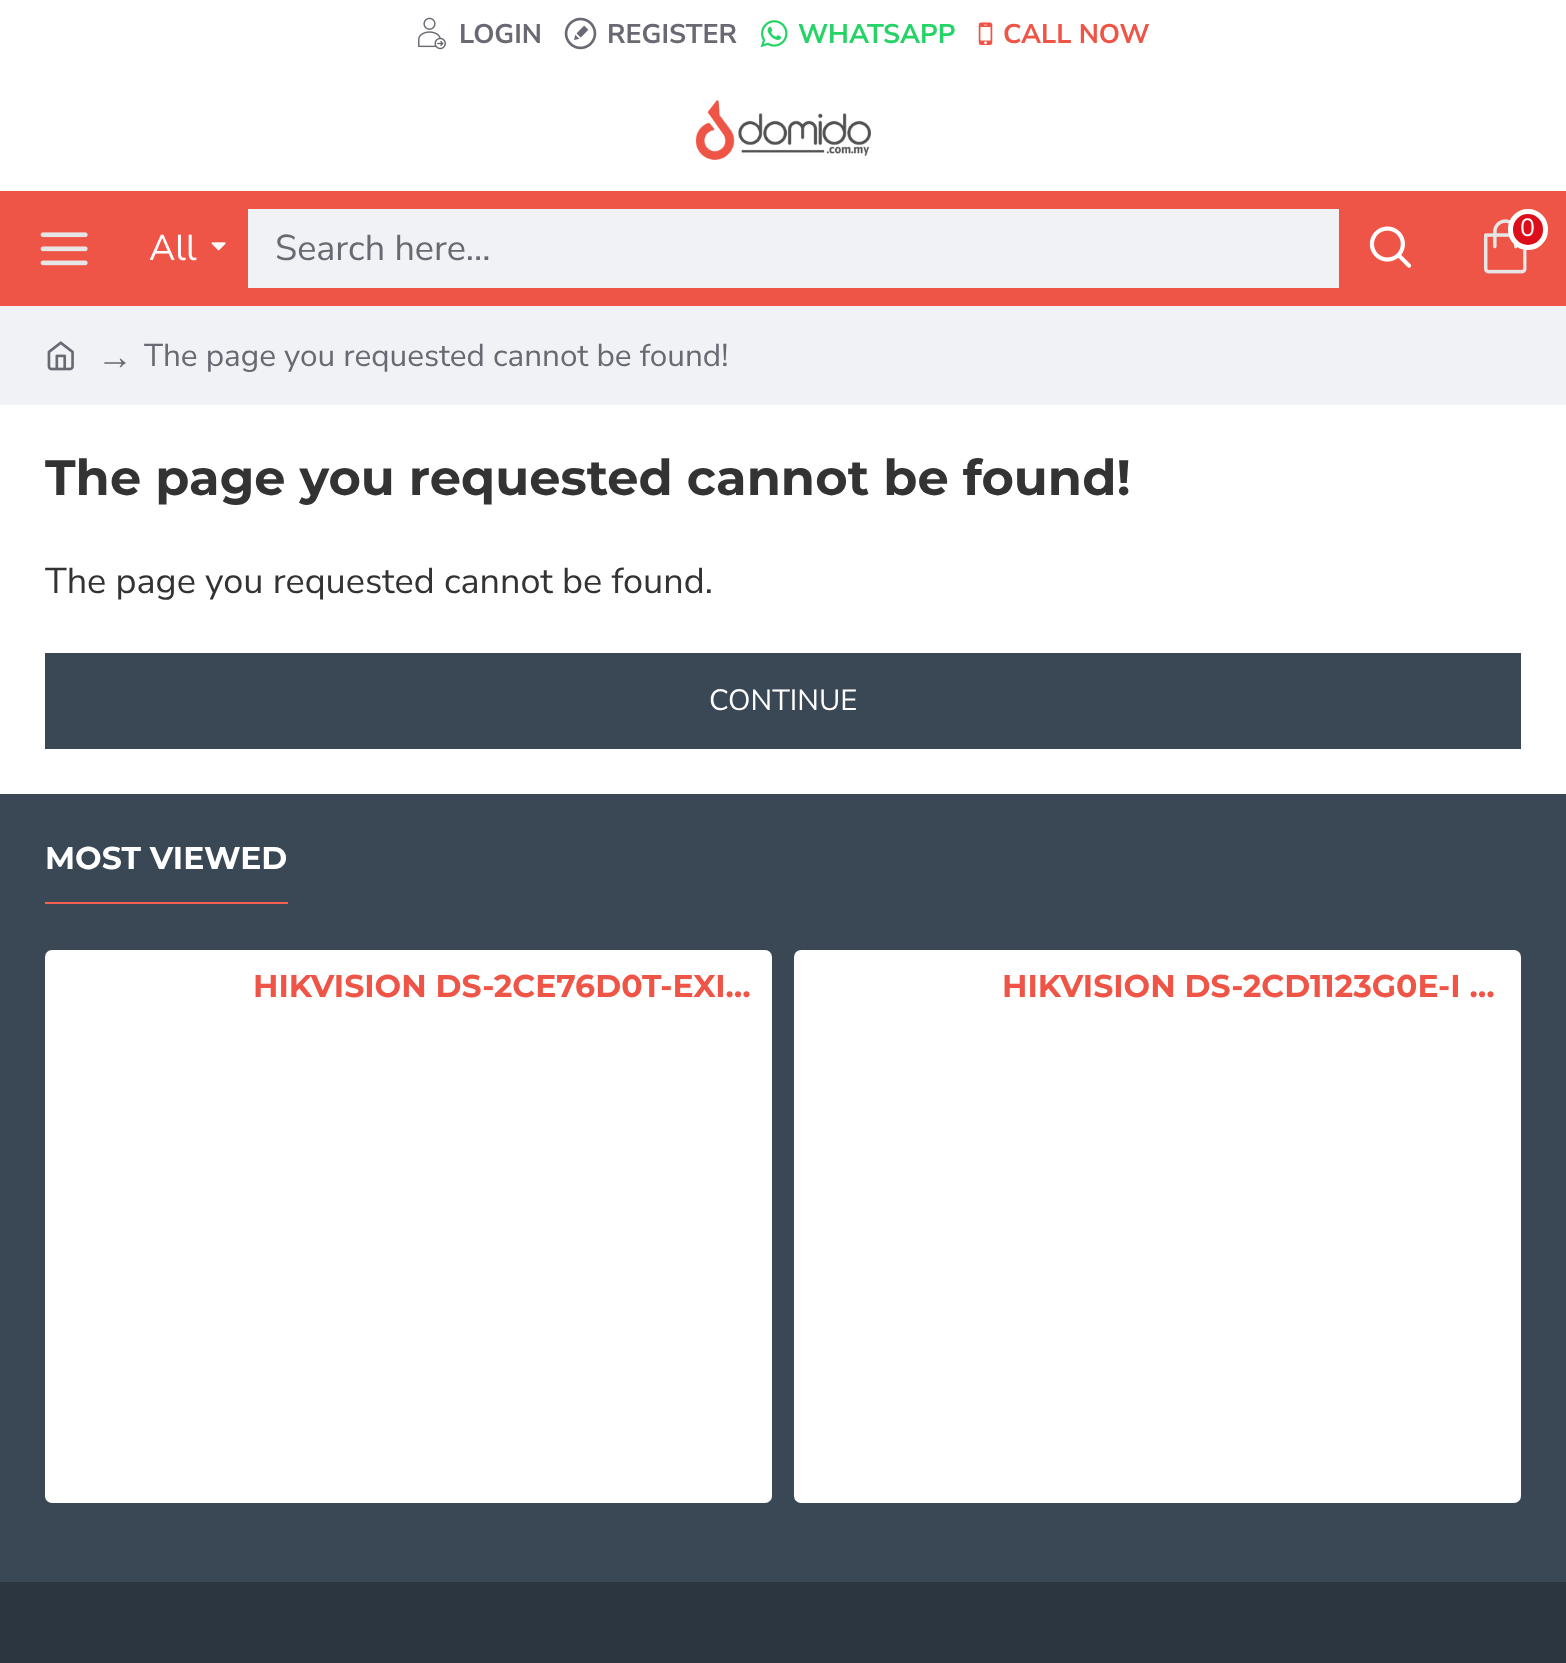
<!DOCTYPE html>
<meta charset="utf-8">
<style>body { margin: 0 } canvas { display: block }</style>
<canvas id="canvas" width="1566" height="1663"></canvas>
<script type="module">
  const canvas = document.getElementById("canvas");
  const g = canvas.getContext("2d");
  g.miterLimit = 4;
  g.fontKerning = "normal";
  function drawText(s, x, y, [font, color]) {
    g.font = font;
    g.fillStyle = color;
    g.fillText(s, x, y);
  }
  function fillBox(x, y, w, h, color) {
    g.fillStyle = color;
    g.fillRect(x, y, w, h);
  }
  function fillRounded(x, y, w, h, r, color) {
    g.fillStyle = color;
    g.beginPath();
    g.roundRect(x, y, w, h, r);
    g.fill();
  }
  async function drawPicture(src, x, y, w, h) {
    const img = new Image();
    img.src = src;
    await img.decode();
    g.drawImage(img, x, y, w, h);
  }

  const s1 = ["bold 27px Nunito Sans", "#696973"];
  const s2 = ["bold 27px Nunito Sans", "#25D366"];
  const s3 = ["bold 27px Nunito Sans", "#EF5547"];
  const s4 = ["25px Nunito Sans", "#FFFFFF"];
  const s5 = ["36px Nunito Sans", "#FFFFFF"];
  const s6 = ["36px Nunito Sans", "#696973"];
  const s7 = ["36px Liberation Serif", "#696973"];
  const s8 = ["31.5px Nunito Sans", "#696973"];
  const s9 = ["bold 49.5px Montserrat", "#333333"];
  const s10 = ["36px Nunito Sans", "#333333"];
  const s11 = ["29.25px Nunito Sans", "#FFFFFF"];
  const s12 = ["bold 31.5px Montserrat", "#FFFFFF"];
  const s13 = ["bold 31.5px Montserrat", "#EF5547"];

  fillBox(0, 0, 1566, 1663, "#FFFFFF");
  await drawPicture("pic1.png", 418, 17, 28, 33);
  drawText("LOGIN", 459, 43, s1);
  await drawPicture("pic2.png", 564, 17, 33, 33);
  drawText("REGISTER", 607, 43, s1);
  await drawPicture("pic3.png", 760, 20, 28, 28);
  drawText("WHATSAPP", 798, 43, s2);
  await drawPicture("pic4.png", 978, 22, 15, 23);
  drawText("CALL NOW", 1003, 43, s3);
  await drawPicture("pic5.png", 695, 100, 176, 60);
  fillBox(0, 191, 1566, 115, "#EF5547");
  await drawPicture("pic6.png", 1484, 219, 43, 55);
  g.fillStyle = "#DD0E1C";
  g.beginPath();
  g.roundRect(1510.5, 211.5, 35, 36, 17.5);
  g.fill();
  g.strokeStyle = "#FFFFFF";
  g.lineWidth = 5;
  g.stroke();
  drawText("0", 1520, 236, s4);
  await drawPicture("pic7.png", 40, 232, 48, 34);
  drawText("All", 149, 260, s5);
  await drawPicture("pic8.png", 211, 242, 15, 9);
  fillBox(248, 209, 1091, 79, "#F0F2F5");
  drawText("Search here...", 275, 260, s6);
  await drawPicture("pic9.png", 1369, 226, 43, 42);
  fillBox(0, 306, 1566, 99, "#F0F2F5");
  await drawPicture("pic10.png", 47, 341, 27, 30);
  drawText("→", 97, 369, s7);
  drawText("The page you requested cannot be found!", 144, 366, s8);
  drawText("The page you requested cannot be found!", 45, 495, s9);
  drawText("The page you requested cannot be found.", 45, 593, s10);
  fillBox(45, 653, 1476, 96, "#3A4754");
  drawText("CONTINUE", 709, 710, s11);
  fillBox(0, 1582, 1566, 81, "#2C3640");
  fillBox(0, 794, 1566, 788, "#3A4754");
  fillBox(45, 902, 243, 2, "#F95F51");
  drawText("MOST VIEWED", 45, 869, s12);
  fillRounded(45, 950, 727, 553, 7, "#FFFFFF");
  drawText("HIKVISION DS-2CE76D0T-EXI…", 253, 997, s13);
  fillRounded(794, 950, 727, 553, 7, "#FFFFFF");
  drawText("HIKVISION DS-2CD1123G0E-I …", 1002, 997, s13);
</script>
